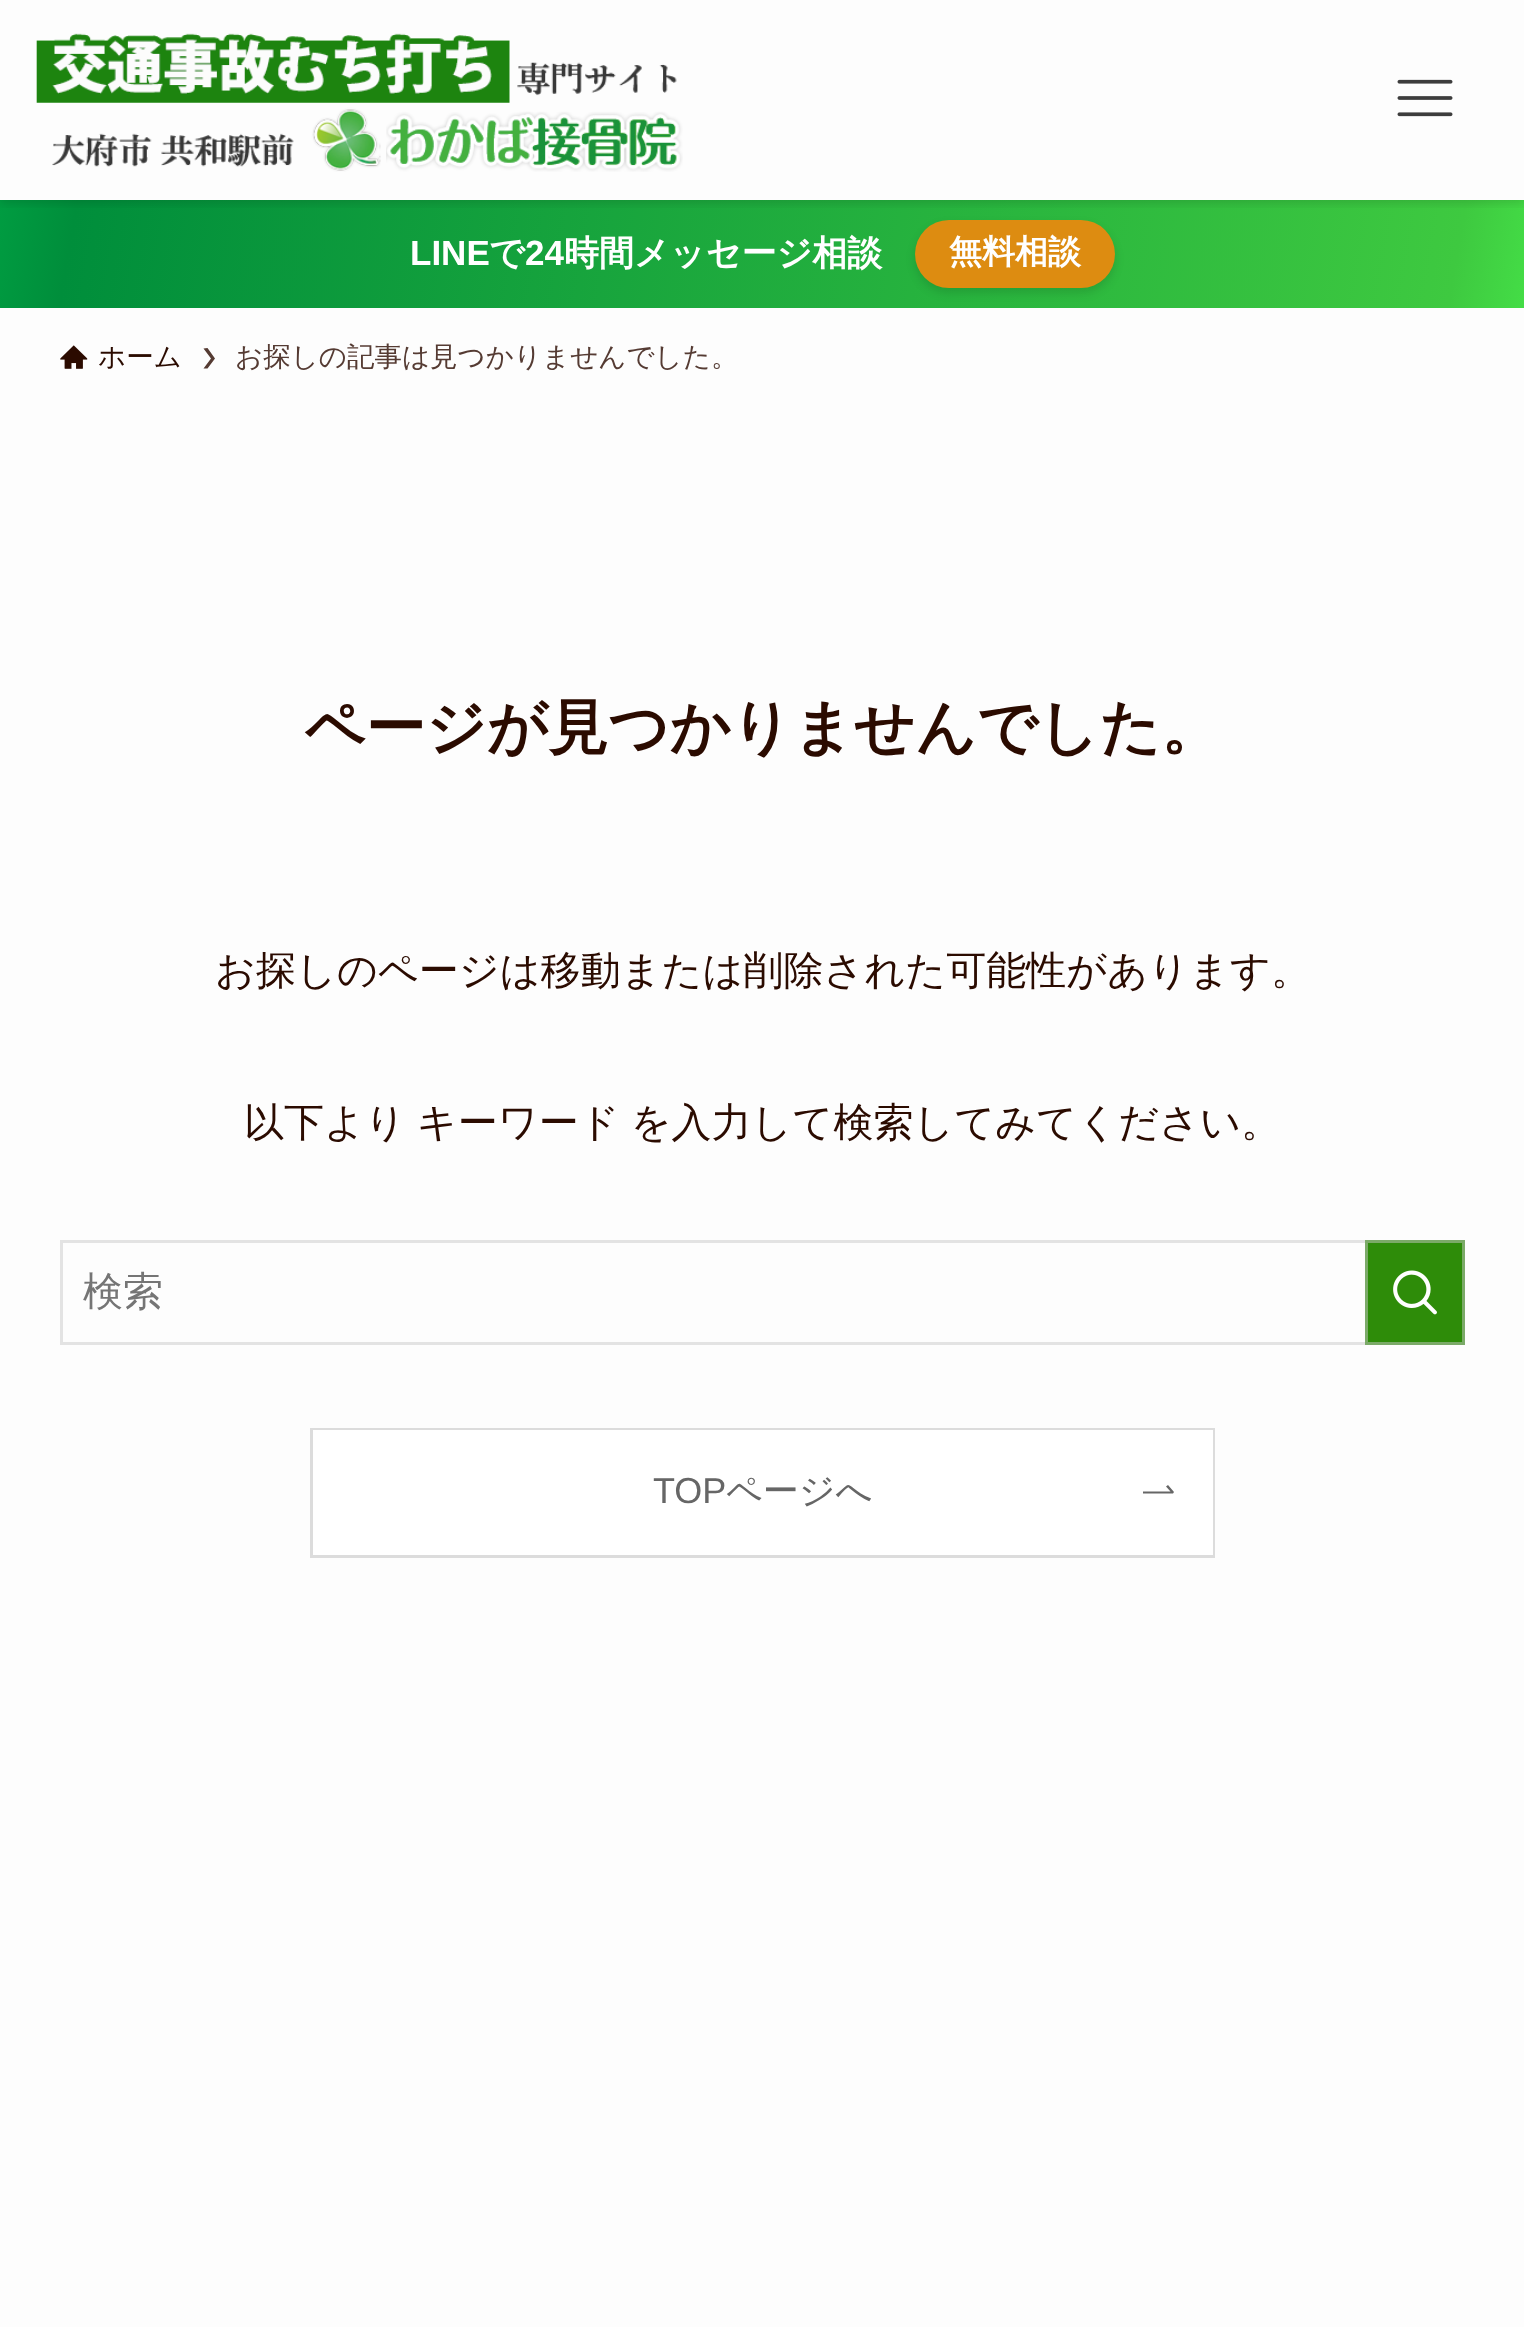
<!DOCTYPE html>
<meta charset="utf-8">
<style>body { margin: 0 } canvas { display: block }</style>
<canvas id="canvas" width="1524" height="2327"></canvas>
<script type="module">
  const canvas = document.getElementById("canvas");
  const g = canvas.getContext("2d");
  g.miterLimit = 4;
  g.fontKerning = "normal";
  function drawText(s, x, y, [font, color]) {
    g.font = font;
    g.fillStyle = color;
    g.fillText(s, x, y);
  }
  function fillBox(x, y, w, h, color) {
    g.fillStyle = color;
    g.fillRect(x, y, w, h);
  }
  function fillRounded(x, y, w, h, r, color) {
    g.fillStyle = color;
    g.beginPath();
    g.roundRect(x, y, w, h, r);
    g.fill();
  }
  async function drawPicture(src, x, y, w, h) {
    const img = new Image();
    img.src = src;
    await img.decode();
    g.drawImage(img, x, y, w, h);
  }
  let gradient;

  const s1 = ["bold 35px Liberation Sans", "#FFFFFF"];
  const s2 = ["bold 35px WenQuanYi Zen Hei", "#FFFFFF"];
  const s3 = ["bold 33px WenQuanYi Zen Hei", "#FFFFFF"];
  const s4 = ["500 27.5px WenQuanYi Zen Hei", "#2B0B00"];
  const s5 = ["500 27.5px WenQuanYi Zen Hei", "#553B33"];
  const s6 = ["bold 60px WenQuanYi Zen Hei", "#2B0B00"];
  const s7 = ["500 40px WenQuanYi Zen Hei", "#2B0B00"];
  const s8 = ["500 40px WenQuanYi Zen Hei", "#757575"];
  const s9 = ["36px Liberation Sans", "#666666"];
  const s10 = ["500 36px WenQuanYi Zen Hei", "#666666"];

  fillBox(0, 0, 1524, 2327, "#FDFDFD");
  gradient = g.createLinearGradient(14, 122, 1511, 386);
  gradient.addColorStop(0, "#009C41");
  gradient.addColorStop(0.05, "#008E3B");
  gradient.addColorStop(0.95, "#3EC940");
  gradient.addColorStop(1, "#44DD46");
  g.fillStyle = gradient;
  g.fillRect(0, 200, 1524, 108);
  g.save();
  g.beginPath();
  g.rect(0, 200, 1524, 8);
  g.clip();
  g.fillStyle = "rgba(0, 0, 0, 0.12)";
  g.filter = "blur(5px)";
  g.beginPath();
  g.rect(0, 3, 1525, 200);
  g.fill();
  g.filter = "none";
  g.restore();
  await drawPicture("pic1.png", 36, 33, 647, 139);
  await drawPicture("pic2.png", 1397, 79, 56, 38);
  drawText("LINE", 410, 265, s1);
  drawText("で", 489, 265, s2);
  drawText("24", 525, 265, s1);
  drawText("時間メッセージ相談", 564, 265, s2);
  g.fillStyle = "rgba(0, 0, 0, 0.12)";
  g.filter = "blur(5px)";
  g.beginPath();
  g.roundRect(915, 225, 200, 68, 34);
  g.fill();
  g.filter = "none";
  fillRounded(915, 220, 200, 68, 34, "#DD8C11");
  drawText("無料相談", 949, 263, s3);
  await drawPicture("pic3.png", 60, 345, 28, 24);
  drawText("ホーム", 98, 366, s4);
  g.fillStyle = "#553B33";
  g.beginPath();
  g.moveTo(207.5, 348);
  g.lineTo(203.5, 348.5);
  g.lineTo(211, 358.5);
  g.lineTo(203.5, 368.5);
  g.lineTo(207.5, 368.5);
  g.lineTo(215, 358.5);
  g.closePath();
  g.fill();
  drawText("お探しの記事は見つかりませんでした。", 235, 366, s5);
  drawText("ページが見つかりませんでした。", 304, 748, s6);
  drawText("お探しのページは移動または削除された可能性があります。", 215, 984, s7);
  g.wordSpacing = "-1px";
  drawText("以下より キーワード を入力して検索してみてください。", 244, 1136, s7);
  g.strokeStyle = "#E3E3E3";
  g.lineWidth = 3;
  g.strokeRect(61.5, 1241.5, 1402, 102);
  g.wordSpacing = "0px";
  drawText("検索", 83, 1305, s8);
  g.fillStyle = "#2E8C09";
  g.beginPath();
  g.rect(1366.5, 1241.5, 97, 102);
  g.fill();
  g.strokeStyle = "#7BAA68";
  g.stroke();
  await drawPicture("pic4.png", 1393, 1270, 44, 45);
  g.strokeStyle = "#DCDCDC";
  g.strokeRect(311.5, 1429.5, 902, 127);
  fillBox(313, 1430, 900, 125, "#FFFFFF");
  drawText("TOP", 653, 1503, s9);
  drawText("ページへ", 726, 1503, s10);
  g.beginPath();
  g.moveTo(1173, 1493.5);
  g.lineTo(1143, 1493.5);
  g.lineTo(1143, 1491.5);
  g.lineTo(1170.5, 1491.5);
  g.lineTo(1166, 1486.5);
  g.lineTo(1168, 1485);
  g.lineTo(1174, 1492);
  g.closePath();
  g.fill();
</script>
